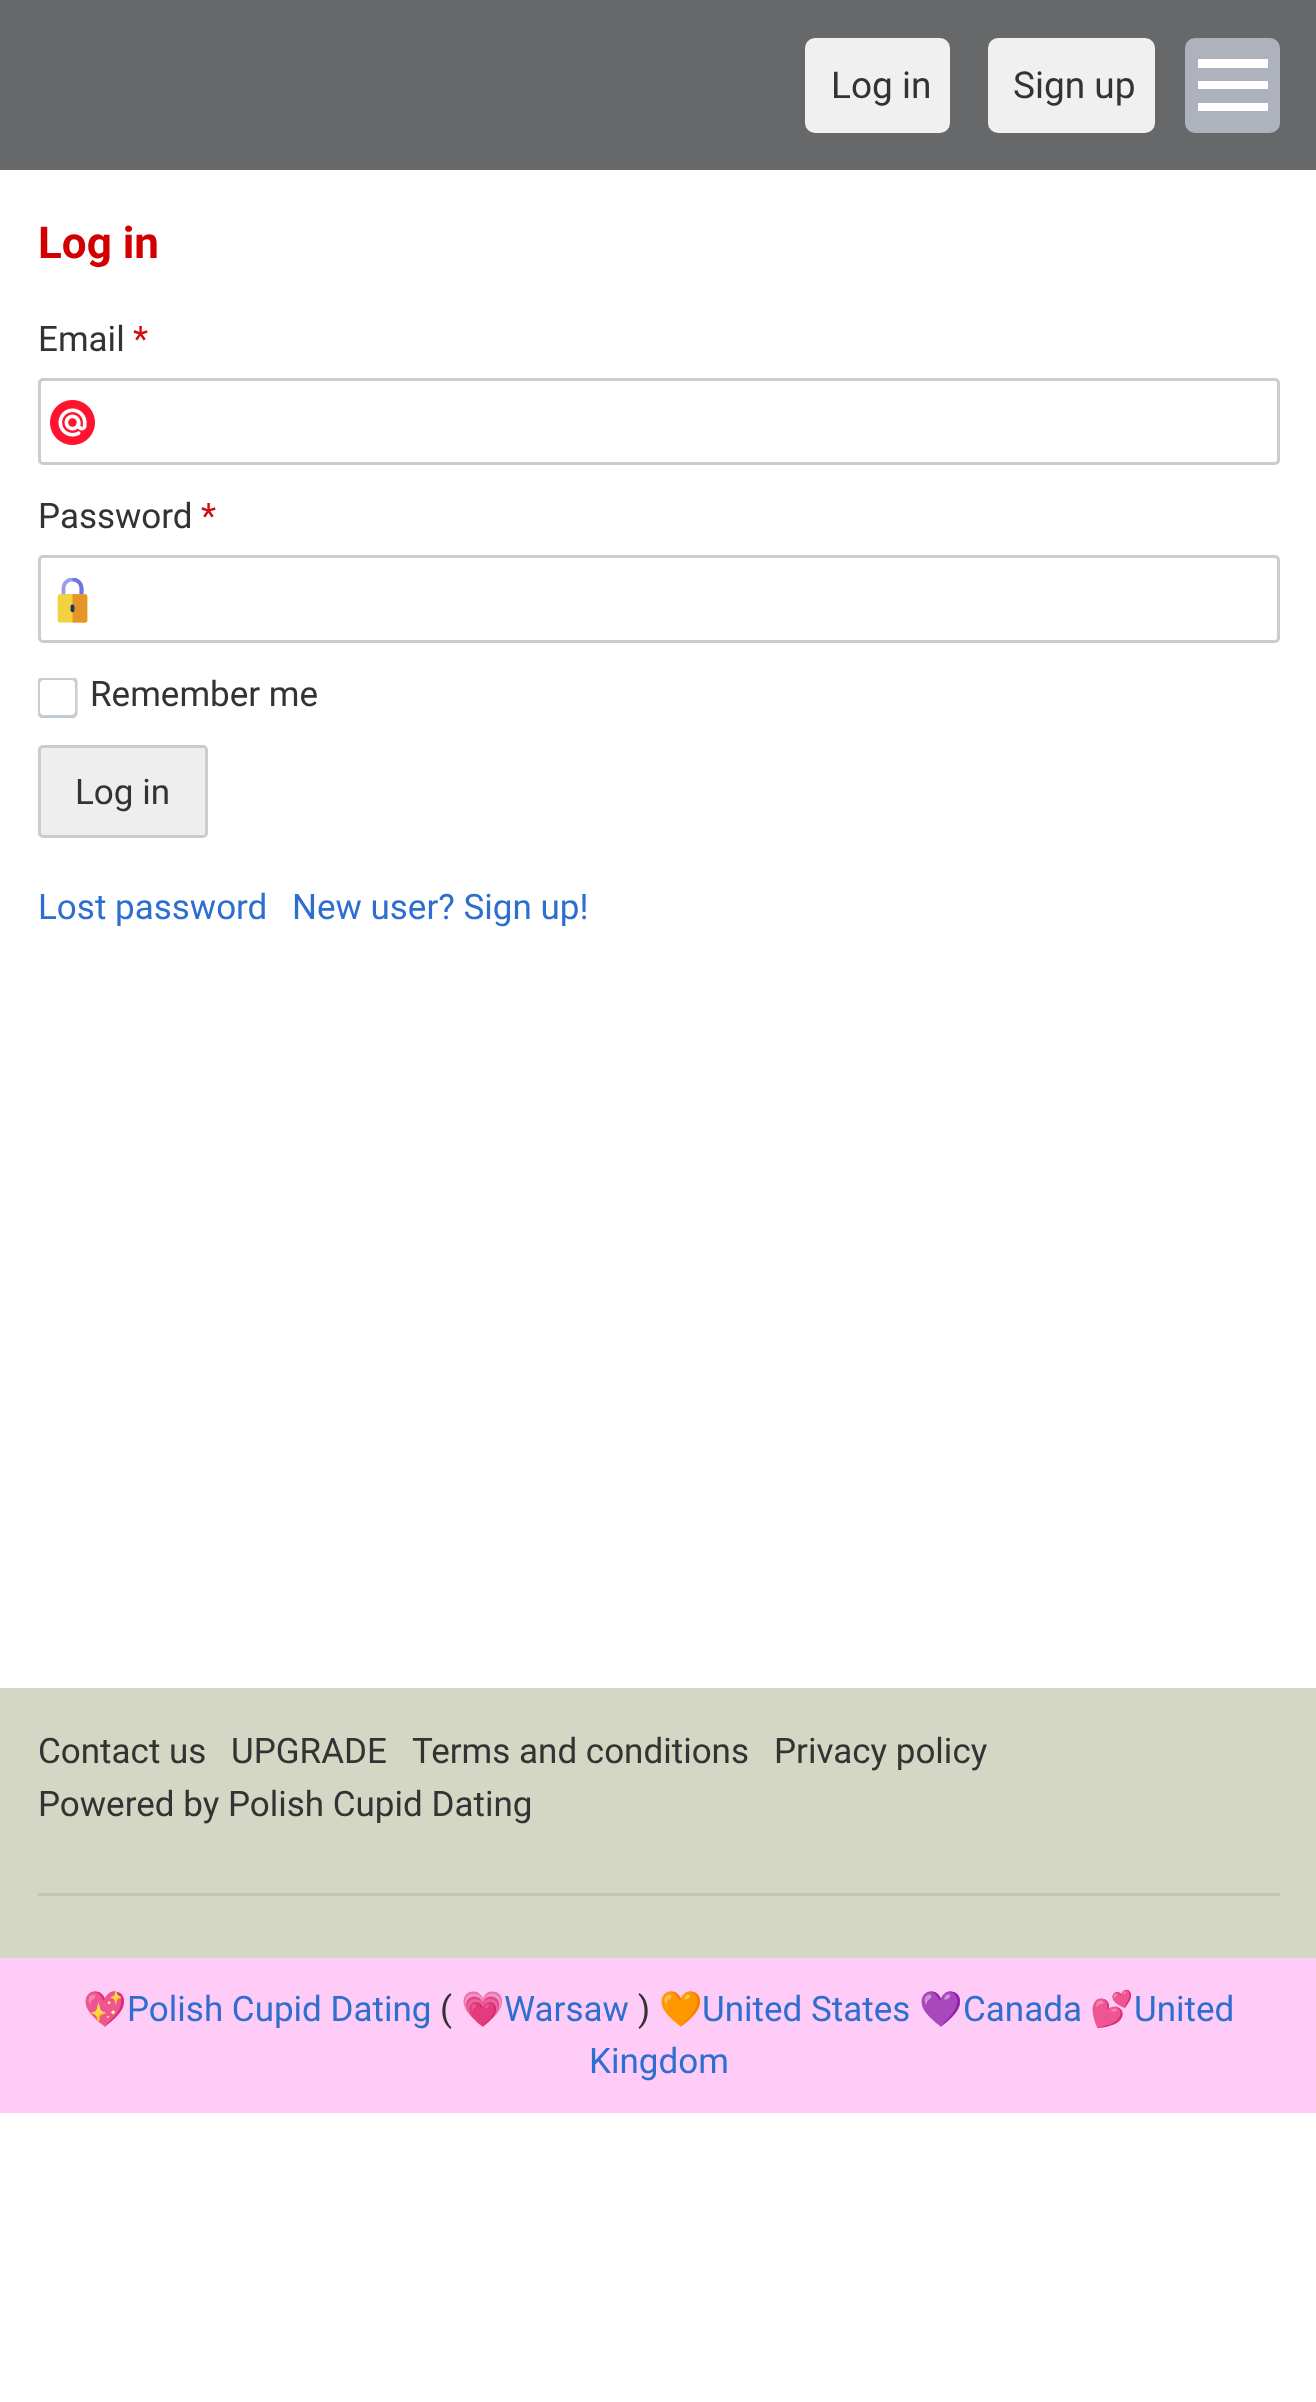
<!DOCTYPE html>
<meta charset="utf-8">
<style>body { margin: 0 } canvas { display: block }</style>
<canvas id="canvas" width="1316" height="2402"></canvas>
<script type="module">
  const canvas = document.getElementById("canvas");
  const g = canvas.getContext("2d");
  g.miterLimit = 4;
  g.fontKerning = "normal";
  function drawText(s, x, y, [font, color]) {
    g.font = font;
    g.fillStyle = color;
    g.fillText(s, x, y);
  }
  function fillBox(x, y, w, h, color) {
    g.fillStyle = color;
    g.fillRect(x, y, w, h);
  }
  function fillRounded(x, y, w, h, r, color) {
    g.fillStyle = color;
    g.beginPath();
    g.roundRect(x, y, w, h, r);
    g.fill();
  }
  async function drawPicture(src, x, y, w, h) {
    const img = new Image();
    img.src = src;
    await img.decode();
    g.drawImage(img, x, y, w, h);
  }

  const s1 = ["37px Roboto", "#333333"];
  const s2 = ["bold 44px Roboto", "#D20000"];
  const s3 = ["35px Roboto", "#333333"];
  const s4 = ["35px Roboto", "#D00E12"];
  const s5 = ["35px Roboto", "#2E6ECF"];
  const s6 = ["35px Noto Color Emoji", "#333333"];

  fillBox(0, 0, 1316, 2402, "#FFFFFF");
  fillBox(0, 0, 1316, 170, "#66686A");
  fillRounded(805, 38, 145, 95, 10, "#F0F0F0");
  drawText("Log in", 831, 98, s1);
  fillRounded(988, 38, 167, 95, 10, "#F0F0F0");
  drawText("Sign up", 1013, 98, s1);
  fillRounded(1185, 38, 95, 95, 10, "#ADB2BD");
  fillBox(1198, 81, 70, 8, "#FFFFFF");
  fillBox(1198, 59, 70, 9, "#FFFFFF");
  fillBox(1198, 103, 70, 8, "#FFFFFF");
  drawText("Log in", 38, 258, s2);
  drawText("Email", 38, 351, s3);
  drawText("*", 133, 351, s4);
  await drawPicture("pic1.png", 50, 400, 45, 45);
  g.beginPath();
  g.roundRect(39.5, 379.5, 1239, 84, 3.5);
  g.strokeStyle = "#CCCCCC";
  g.lineWidth = 3;
  g.stroke();
  drawText("Password", 38, 528, s3);
  drawText("*", 201, 528, s4);
  await drawPicture("pic2.png", 57, 578, 31, 45);
  g.beginPath();
  g.roundRect(39.5, 556.5, 1239, 85, 3.5);
  g.stroke();
  await drawPicture("pic3.png", 38, 678, 40, 40);
  drawText("Remember me", 90, 706, s3);
  g.fillStyle = "#EEEEEE";
  g.beginPath();
  g.roundRect(39.5, 746.5, 167, 90, 3.5);
  g.fill();
  g.stroke();
  drawText("Log in", 75, 804, s3);
  drawText("Lost password", 38, 919, s5);
  drawText("New user? Sign up!", 292, 919, s5);
  fillBox(0, 1688, 1316, 270, "#D3D7C4");
  drawText("Contact us", 38, 1763, s3);
  drawText("UPGRADE", 231, 1763, s3);
  drawText("Terms and conditions", 412, 1763, s3);
  drawText("Privacy policy", 774, 1763, s3);
  drawText("Powered by Polish Cupid Dating", 38, 1816, s3);
  fillBox(38, 1893, 1242, 3, "#C1C7AC");
  fillBox(0, 1958, 1316, 155, "#FFCCF8");
  drawText("💖", 83, 2021, s6);
  drawText("Polish Cupid Dating", 127, 2021, s5);
  drawText("(", 440, 2021, s3);
  drawText("💗", 461, 2021, s6);
  drawText("Warsaw", 504, 2021, s5);
  drawText(")", 638, 2021, s3);
  drawText("🧡", 659, 2021, s6);
  drawText("United States", 702, 2021, s5);
  drawText("💜", 919, 2021, s6);
  drawText("Canada", 963, 2021, s5);
  drawText("💕", 1090, 2021, s6);
  drawText("United", 1134, 2021, s5);
  drawText("Kingdom", 589, 2073, s5);
</script>
